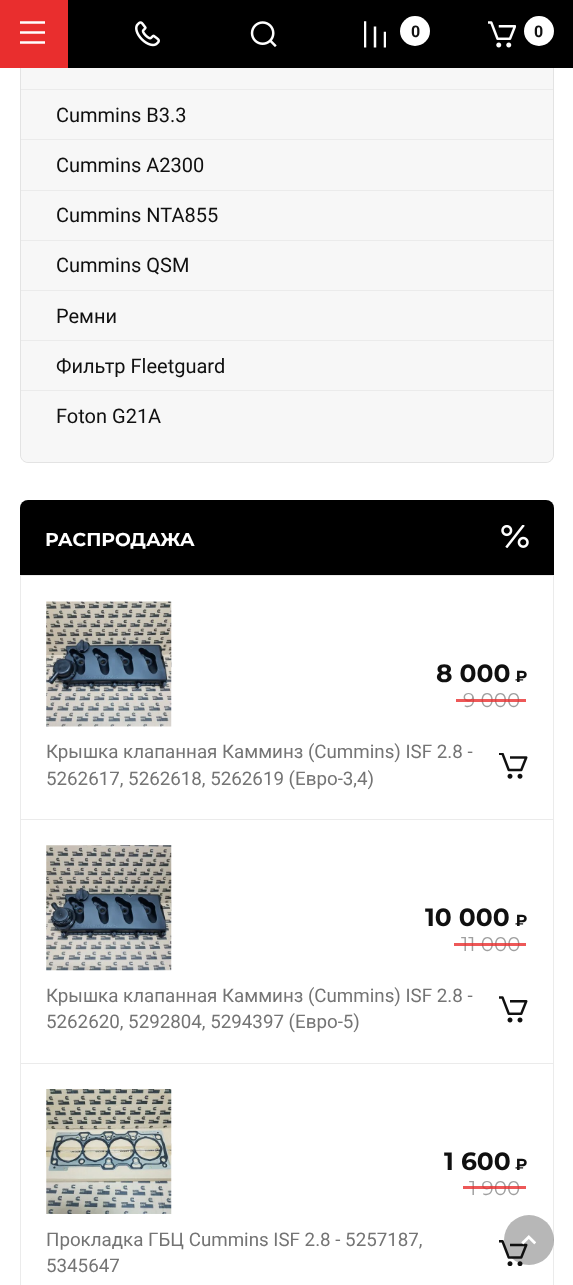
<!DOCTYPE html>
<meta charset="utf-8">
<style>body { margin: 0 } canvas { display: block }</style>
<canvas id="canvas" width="573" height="1285"></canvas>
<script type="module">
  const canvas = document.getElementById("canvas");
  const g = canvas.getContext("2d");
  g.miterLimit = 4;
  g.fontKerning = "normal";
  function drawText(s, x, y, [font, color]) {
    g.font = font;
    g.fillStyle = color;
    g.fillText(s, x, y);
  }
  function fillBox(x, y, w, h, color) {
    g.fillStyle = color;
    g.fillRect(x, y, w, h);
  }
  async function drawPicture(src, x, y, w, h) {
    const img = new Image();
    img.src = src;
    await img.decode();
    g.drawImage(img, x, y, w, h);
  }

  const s1 = ["bold 16px Roboto", "#101010"];
  const s2 = ["20px Roboto", "#101010"];
  const s3 = ["bold 18.75px Montserrat", "#FFFFFF"];
  const s4 = ["bold 25px Montserrat", "#101010"];
  const s5 = ["bold 16px Montserrat", "#101010"];
  const s6 = ["20px Montserrat", "#9F9F9F"];
  const s7 = ["18.75px Roboto", "#747474"];

  fillBox(0, 0, 573, 1285, "#FFFFFF");
  g.fillStyle = "#F7F7F7";
  g.beginPath();
  g.moveTo(20, -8);
  g.lineTo(554, -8);
  g.lineTo(554, 455);
  g.bezierCurveTo(554, 459.5, 550.5, 463, 546, 463);
  g.lineTo(28, 463);
  g.bezierCurveTo(23.5, 463, 20, 459.5, 20, 455);
  g.closePath();
  g.fill();
  g.beginPath();
  g.moveTo(20.5, -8.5);
  g.lineTo(553.5, -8.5);
  g.lineTo(553.5, 455);
  g.bezierCurveTo(553.5, 459, 550, 462.5, 546, 462.5);
  g.lineTo(28, 462.5);
  g.bezierCurveTo(24, 462.5, 20.5, 459, 20.5, 455);
  g.closePath();
  g.strokeStyle = "rgba(0, 0, 0, 0.08)";
  g.stroke();
  fillBox(68, 0, 505, 68, "#000000");
  fillBox(0, 0, 68, 68, "#E92E2E");
  await drawPicture("pic1.png", 20, 21, 25, 23);
  await drawPicture("pic2.png", 135, 21, 25, 26);
  await drawPicture("pic3.png", 250, 21, 27, 26);
  await drawPicture("pic4.png", 364, 21, 22, 27);
  g.fillStyle = "#FFFFFF";
  g.beginPath();
  g.arc(415, 31, 15, 0, Math.PI * 2);
  g.fill();
  drawText("0", 411, 37, s1);
  await drawPicture("pic5.png", 488, 21, 28, 27);
  g.fillStyle = "#FFFFFF";
  g.beginPath();
  g.arc(539, 31, 15, 0, Math.PI * 2);
  g.fill();
  drawText("0", 534, 37, s1);
  fillBox(21, 89, 532, 1, "#EBEBEB");
  fillBox(21, 139, 532, 1, "#EBEBEB");
  drawText("Cummins B3.3", 56, 122, s2);
  fillBox(21, 190, 532, 1, "#EBEBEB");
  drawText("Cummins A2300", 56, 172, s2);
  fillBox(21, 240, 532, 1, "#EBEBEB");
  drawText("Cummins NTA855", 56, 222, s2);
  fillBox(21, 290, 532, 1, "#EBEBEB");
  drawText("Cummins QSM", 56, 272, s2);
  fillBox(21, 340, 532, 1, "#EBEBEB");
  drawText("Ремни", 56, 323, s2);
  fillBox(21, 390, 532, 1, "#EBEBEB");
  drawText("Фильтр Fleetguard", 56, 373, s2);
  drawText("Foton G21A", 56, 423, s2);
  g.fillStyle = "#000000";
  g.beginPath();
  g.roundRect(20, 500, 534, 75, [8, 8, 0, 0]);
  g.fill();
  drawText("РАСПРОДАЖА", 45, 546, s3);
  await drawPicture("pic6.png", 501, 525, 28, 23);
  g.strokeStyle = "#EBEBEB";
  g.strokeRect(20.5, 575.5, 533, 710);
  fillBox(21, 819, 532, 1, "#EBEBEB");
  await drawPicture("pic7.png", 46, 653, 126, 17);
  await drawPicture("pic8.png", 46, 601, 126, 126);
  drawText("8 000", 436, 682, s4);
  drawText("₽", 515, 682, s5);
  drawText("9 000", 463, 707, s6);
  fillBox(456, 699, 70, 3, "rgba(233, 46, 46, 0.8)");
  drawText("Крышка клапанная Камминз (Cummins) ISF 2.8 -", 46, 758, s7);
  drawText("5262617, 5262618, 5262619 (Евро-3,4)", 46, 785, s7);
  await drawPicture("pic9.png", 499, 753, 29, 26);
  fillBox(21, 1063, 532, 1, "#EBEBEB");
  await drawPicture("pic10.png", 46, 897, 126, 17);
  await drawPicture("pic11.png", 46, 845, 126, 126);
  drawText("10 000", 425, 926, s4);
  drawText("₽", 515, 926, s5);
  drawText("11 000", 461, 951, s6);
  fillBox(454, 943, 72, 3, "rgba(233, 46, 46, 0.8)");
  drawText("Крышка клапанная Камминз (Cummins) ISF 2.8 -", 46, 1002, s7);
  drawText("5262620, 5292804, 5294397 (Евро-5)", 46, 1028, s7);
  await drawPicture("pic12.png", 499, 996, 29, 27);
  await drawPicture("pic13.png", 46, 1141, 126, 17);
  await drawPicture("pic14.png", 46, 1089, 126, 125);
  drawText("1 600", 444, 1170, s4);
  drawText("₽", 515, 1170, s5);
  drawText("1 900", 469, 1195, s6);
  fillBox(463, 1186, 63, 3, "rgba(233, 46, 46, 0.8)");
  drawText("Прокладка ГБЦ Cummins ISF 2.8 - 5257187,", 46, 1246, s7);
  drawText("5345647", 46, 1272, s7);
  await drawPicture("pic15.png", 499, 1240, 29, 26);
  g.fillStyle = "rgba(16, 16, 16, 0.3)";
  g.beginPath();
  g.arc(529, 1240, 25, 0, Math.PI * 2);
  g.fill();
  await drawPicture("pic16.png", 521, 1235, 15, 10);
</script>
